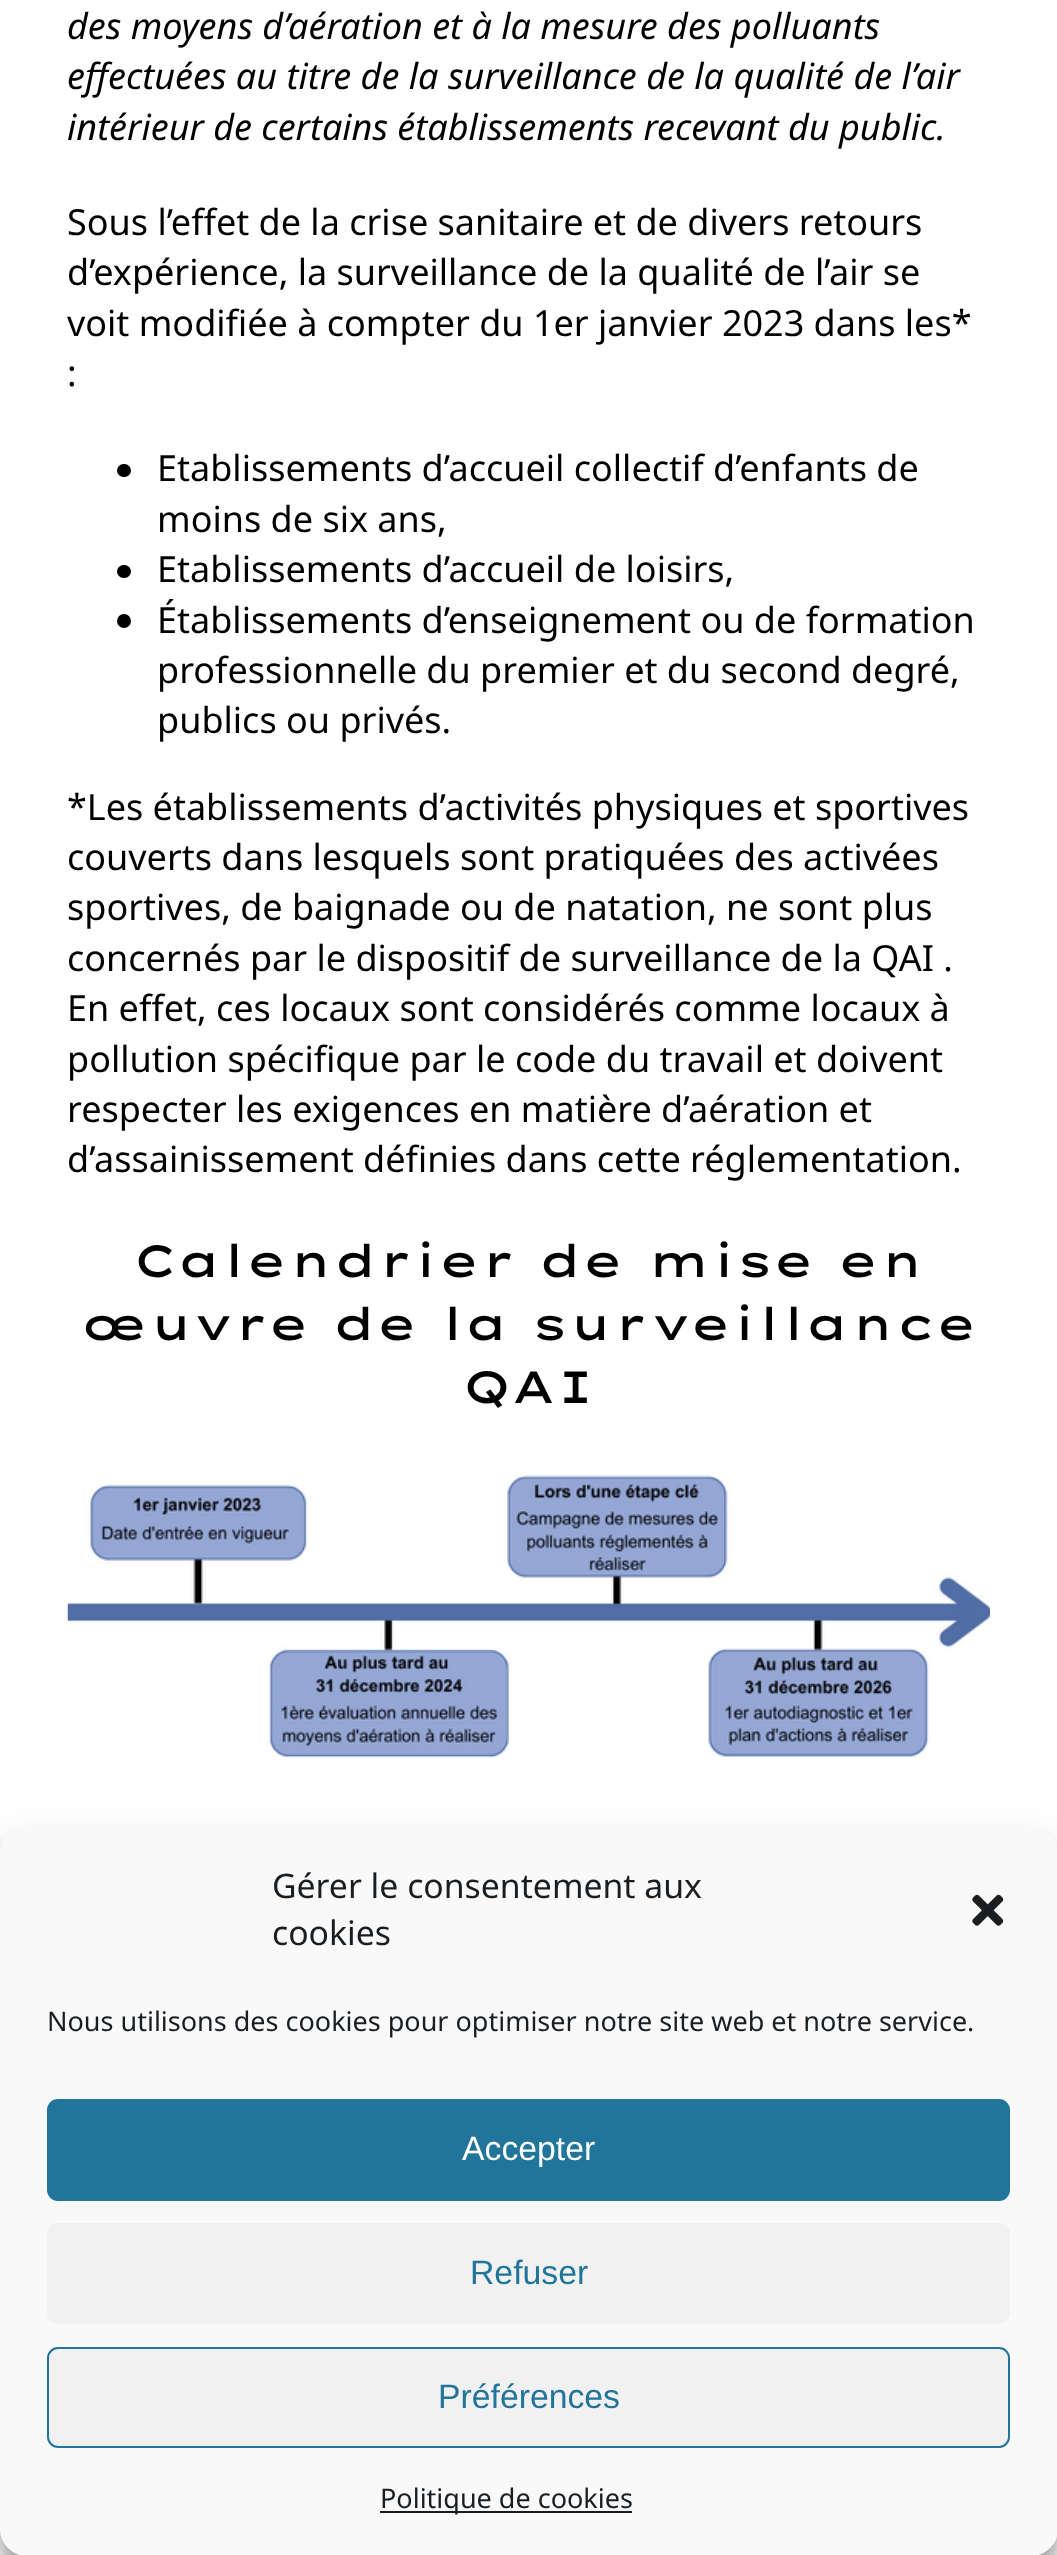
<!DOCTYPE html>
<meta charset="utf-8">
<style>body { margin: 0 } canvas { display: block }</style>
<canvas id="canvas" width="1057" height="2555"></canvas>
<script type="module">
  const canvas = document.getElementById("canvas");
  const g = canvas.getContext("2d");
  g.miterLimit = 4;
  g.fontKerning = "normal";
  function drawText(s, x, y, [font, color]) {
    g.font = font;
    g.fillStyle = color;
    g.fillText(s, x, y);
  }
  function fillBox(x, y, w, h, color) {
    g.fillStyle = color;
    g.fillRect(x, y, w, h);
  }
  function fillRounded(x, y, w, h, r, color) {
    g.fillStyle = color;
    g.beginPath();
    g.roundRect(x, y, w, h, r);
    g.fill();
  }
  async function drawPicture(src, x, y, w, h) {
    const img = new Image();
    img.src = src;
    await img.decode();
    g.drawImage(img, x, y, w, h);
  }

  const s1 = ["italic 36px Noto Sans", "#000000"];
  const s2 = ["36px Noto Sans", "#000000"];
  const s3 = ["500 45px Lexend Zetta", "#000000"];
  const s4 = ["33.75px Noto Sans", "#191E23"];
  const s5 = ["27px Noto Sans", "#191E23"];
  const s6 = ["33.75px Liberation Sans", "#FFFFFF"];
  const s7 = ["33.75px Liberation Sans", "#21759B"];

  fillBox(0, 0, 1057, 2555, "#FFFFFF");
  drawText("des moyens d’aération et à la mesure des polluants", 67, 39, s1);
  drawText("effectuées au titre de la surveillance de la qualité de l’air", 67, 89, s1);
  drawText("intérieur de certains établissements recevant du public.", 67, 140, s1);
  drawText("Sous l’effet de la crise sanitaire et de divers retours", 67, 235, s2);
  drawText("d’expérience, la surveillance de la qualité de l’air se", 67, 285, s2);
  drawText("voit modifiée à compter du 1er janvier 2023 dans les*", 67, 336, s2);
  drawText(":", 67, 386, s2);
  fillRounded(117, 464, 14, 13, 6.5, "#000000");
  drawText("Etablissements d’accueil collectif d’enfants de", 157, 481, s2);
  drawText("moins de six ans,", 157, 532, s2);
  fillRounded(117, 565, 14, 13, 6.5, "#000000");
  drawText("Etablissements d’accueil de loisirs,", 157, 582, s2);
  g.beginPath();
  g.arc(124, 621, 7, 0, Math.PI * 2);
  g.fill();
  drawText("Établissements d’enseignement ou de formation", 157, 633, s2);
  drawText("professionnelle du premier et du second degré,", 157, 683, s2);
  drawText("publics ou privés.", 157, 733, s2);
  drawText("*Les établissements d’activités physiques et sportives", 67, 820, s2);
  drawText("couverts dans lesquels sont pratiquées des activées", 67, 870, s2);
  drawText("sportives, de baignade ou de natation, ne sont plus", 67, 920, s2);
  drawText("concernés par le dispositif de surveillance de la QAI .", 67, 971, s2);
  drawText("En effet, ces locaux sont considérés comme locaux à", 67, 1021, s2);
  drawText("pollution spécifique par le code du travail et doivent", 67, 1072, s2);
  drawText("respecter les exigences en matière d’aération et", 67, 1122, s2);
  drawText("d’assainissement définies dans cette réglementation.", 67, 1172, s2);
  drawText("Calendrier de mise en", 133, 1277, s3);
  drawText("œuvre de la surveillance", 80, 1340, s3);
  drawText("QAI", 462, 1403, s3);
  await drawPicture("pic1.png", 67, 1475, 923, 283);
  g.fillStyle = "rgba(0, 0, 0, 0.23)";
  g.filter = "blur(7px)";
  g.beginPath();
  g.roundRect(0, 1841, 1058, 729, 27);
  g.fill();
  g.filter = "none";
  g.fillStyle = "rgba(0, 0, 0, 0.19)";
  g.filter = "blur(22.5px)";
  g.beginPath();
  g.roundRect(0, 1850, 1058, 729, 27);
  g.fill();
  g.filter = "none";
  g.fillStyle = "#F9F9F9";
  g.beginPath();
  g.roundRect(1, 1828, 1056, 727, 26);
  g.fill();
  g.strokeStyle = "#F9F9F9";
  g.lineWidth = 2;
  g.stroke();
  drawText("Gérer le consentement aux", 272, 1898, s4);
  drawText("cookies", 272, 1945, s4);
  await drawPicture("pic2.png", 972, 1894, 32, 32);
  drawText("Nous utilisons des cookies pour optimiser notre site web et notre service.", 47, 2031, s5);
  g.fillStyle = "#21759B";
  g.beginPath();
  g.roundRect(48, 2100, 961, 100, 10);
  g.fill();
  g.strokeStyle = "#21759B";
  g.stroke();
  drawText("Accepter", 462, 2160, s6);
  fillRounded(47, 2223, 963, 101, 11, "#F1F1F1");
  drawText("Refuser", 470, 2284, s7);
  g.fillStyle = "#F1F1F1";
  g.beginPath();
  g.roundRect(48, 2348, 961, 99, 10);
  g.fill();
  g.stroke();
  drawText("Préférences", 438, 2408, s7);
  fillBox(380, 2511, 252, 2, "#191E23");
  drawText("Politique de cookies", 380, 2508, s5);
</script>
